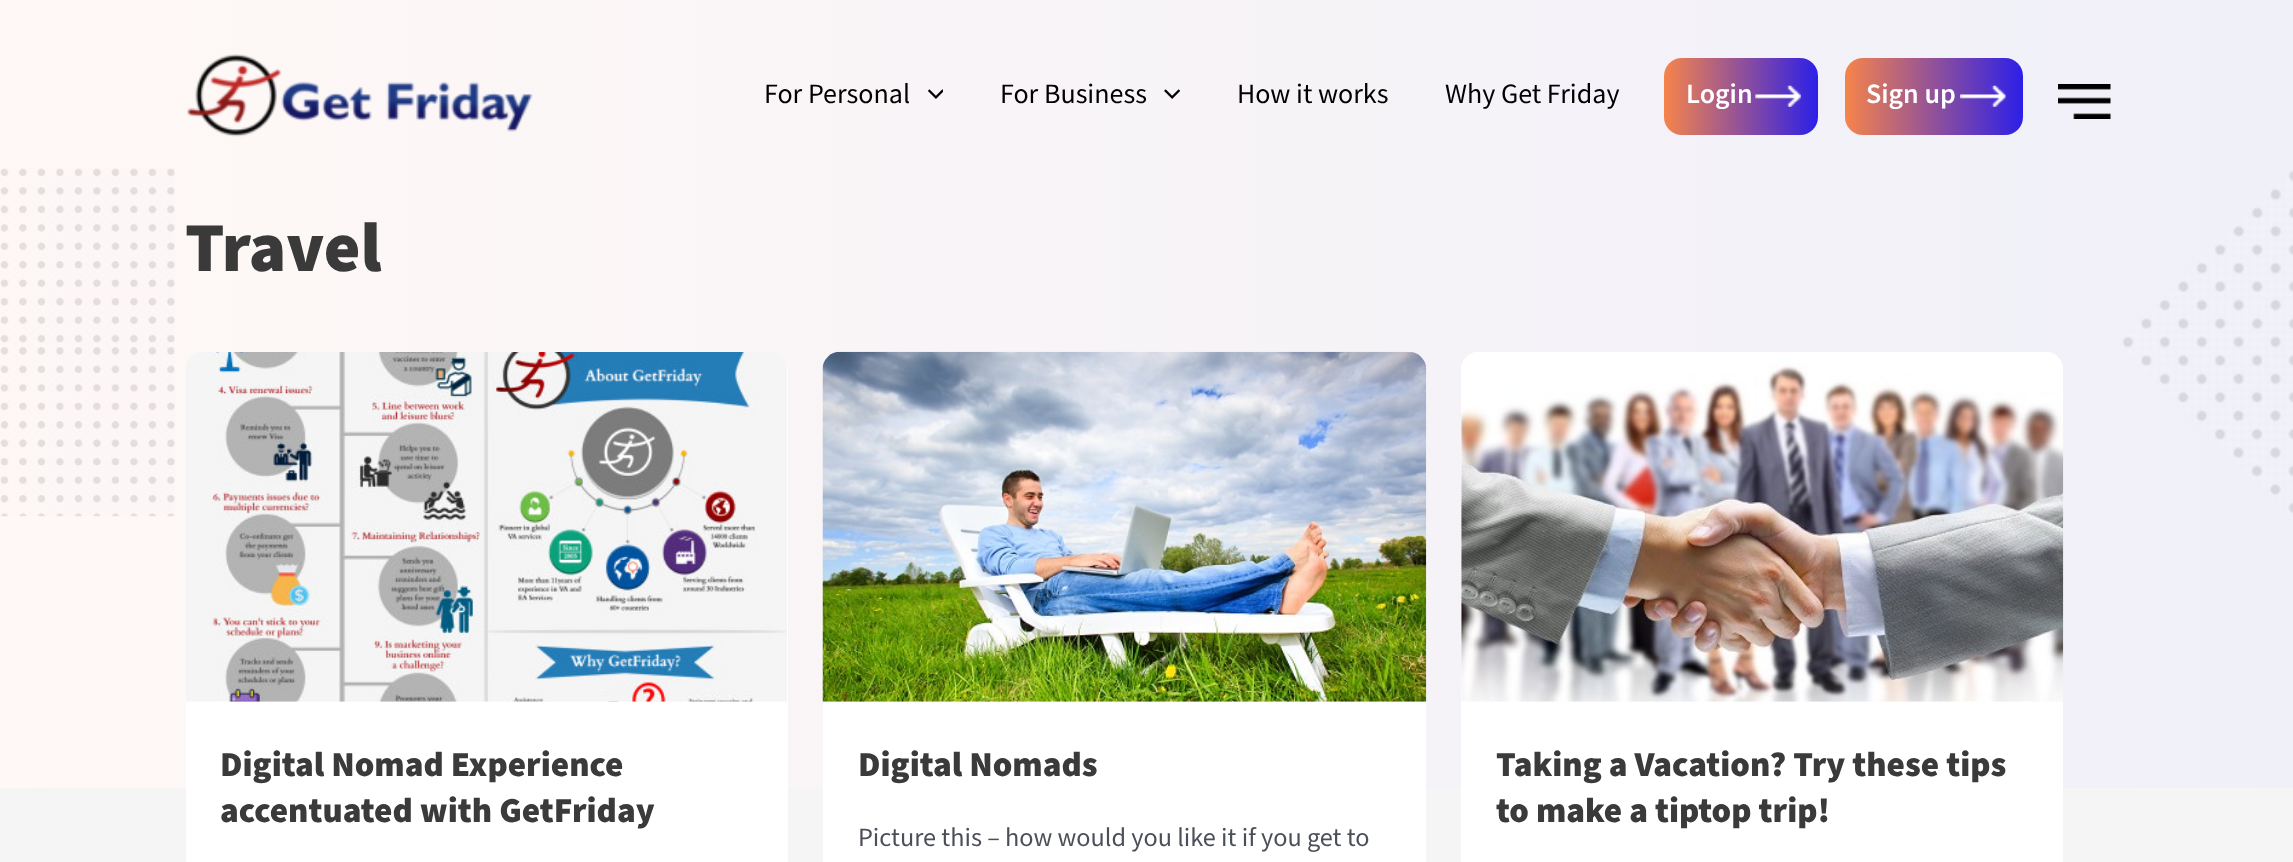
<!DOCTYPE html>
<meta charset="utf-8">
<style>body { margin: 0 } canvas { display: block }</style>
<canvas id="canvas" width="2293" height="862"></canvas>
<script type="module">
  const canvas = document.getElementById("canvas");
  const g = canvas.getContext("2d");
  g.miterLimit = 4;
  g.fontKerning = "normal";
  function drawText(s, x, y, [font, color]) {
    g.font = font;
    g.fillStyle = color;
    g.fillText(s, x, y);
  }
  function fillBox(x, y, w, h, color) {
    g.fillStyle = color;
    g.fillRect(x, y, w, h);
  }
  function fillRounded(x, y, w, h, r, color) {
    g.fillStyle = color;
    g.beginPath();
    g.roundRect(x, y, w, h, r);
    g.fill();
  }
  async function drawPicture(src, x, y, w, h) {
    const img = new Image();
    img.src = src;
    await img.decode();
    g.drawImage(img, x, y, w, h);
  }
  let gradient;

  const s1 = ["28px Mada", "#000000"];
  const s2 = ["600 28px Mada", "#FFFFFF"];
  const s3 = ["900 70px Mada", "#3A3A3A"];
  const s4 = ["900 35px Mada", "#3A3A3A"];
  const s5 = ["26.25px Mada", "#4B4F58"];

  fillBox(0, 0, 2293, 862, "#F5F5F5");
  gradient = g.createLinearGradient(0, 394, 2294, 394);
  gradient.addColorStop(0, "#FFF8F6");
  gradient.addColorStop(1, "#F0F0F9");
  g.fillStyle = gradient;
  g.fillRect(0, 0, 2293, 788);
  await drawPicture("pic1.png", 187, 54, 346, 83);
  drawText("For Personal", 764, 103, s1);
  await drawPicture("pic2.png", 928, 89, 15, 10);
  drawText("For Business", 1000, 103, s1);
  await drawPicture("pic3.png", 1164, 89, 17, 10);
  drawText("How it works", 1237, 103, s1);
  drawText("Why Get Friday", 1445, 103, s1);
  gradient = g.createLinearGradient(1664, 96, 1818, 96);
  gradient.addColorStop(0, "#F6844B");
  gradient.addColorStop(1, "#2C1FE8");
  g.fillStyle = gradient;
  g.beginPath();
  g.roundRect(1664, 58, 154, 77, 18);
  g.fill();
  drawText("Login", 1686, 103, s2);
  await drawPicture("pic4.png", 1755, 85, 46, 22);
  gradient = g.createLinearGradient(1845, 96, 2023, 96);
  gradient.addColorStop(0, "#F6844B");
  gradient.addColorStop(1, "#2C1FE8");
  g.fillStyle = gradient;
  g.beginPath();
  g.roundRect(1845, 58, 178, 77, 18);
  g.fill();
  drawText("Sign up", 1866, 103, s2);
  await drawPicture("pic5.png", 1960, 85, 46, 22);
  await drawPicture("pic6.png", 2058, 84, 53, 35);
  await drawPicture("pic7.png", 0, 168, 175, 349);
  drawText("Travel", 185, 271, s3);
  fillRounded(186, 352, 602, 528, 18, "#FFFFFF");
  await drawPicture("pic8.png", 186, 352, 601, 350);
  drawText("Digital Nomad Experience", 220, 776, s4);
  drawText("accentuated with GetFriday", 220, 822, s4);
  fillRounded(823, 352, 603, 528, 18, "#FFFFFF");
  await drawPicture("pic9.png", 822, 351, 605, 351);
  drawText("Digital Nomads", 858, 776, s4);
  drawText("Picture this – how would you like it if you get to", 858, 846, s5);
  fillRounded(1461, 352, 602, 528, 18, "#FFFFFF");
  await drawPicture("pic10.png", 1461, 352, 603, 350);
  drawText("Taking a Vacation? Try these tips", 1496, 776, s4);
  drawText("to make a tiptop trip!", 1496, 822, s4);
  await drawPicture("pic11.png", 2122, 170, 171, 344);
</script>
